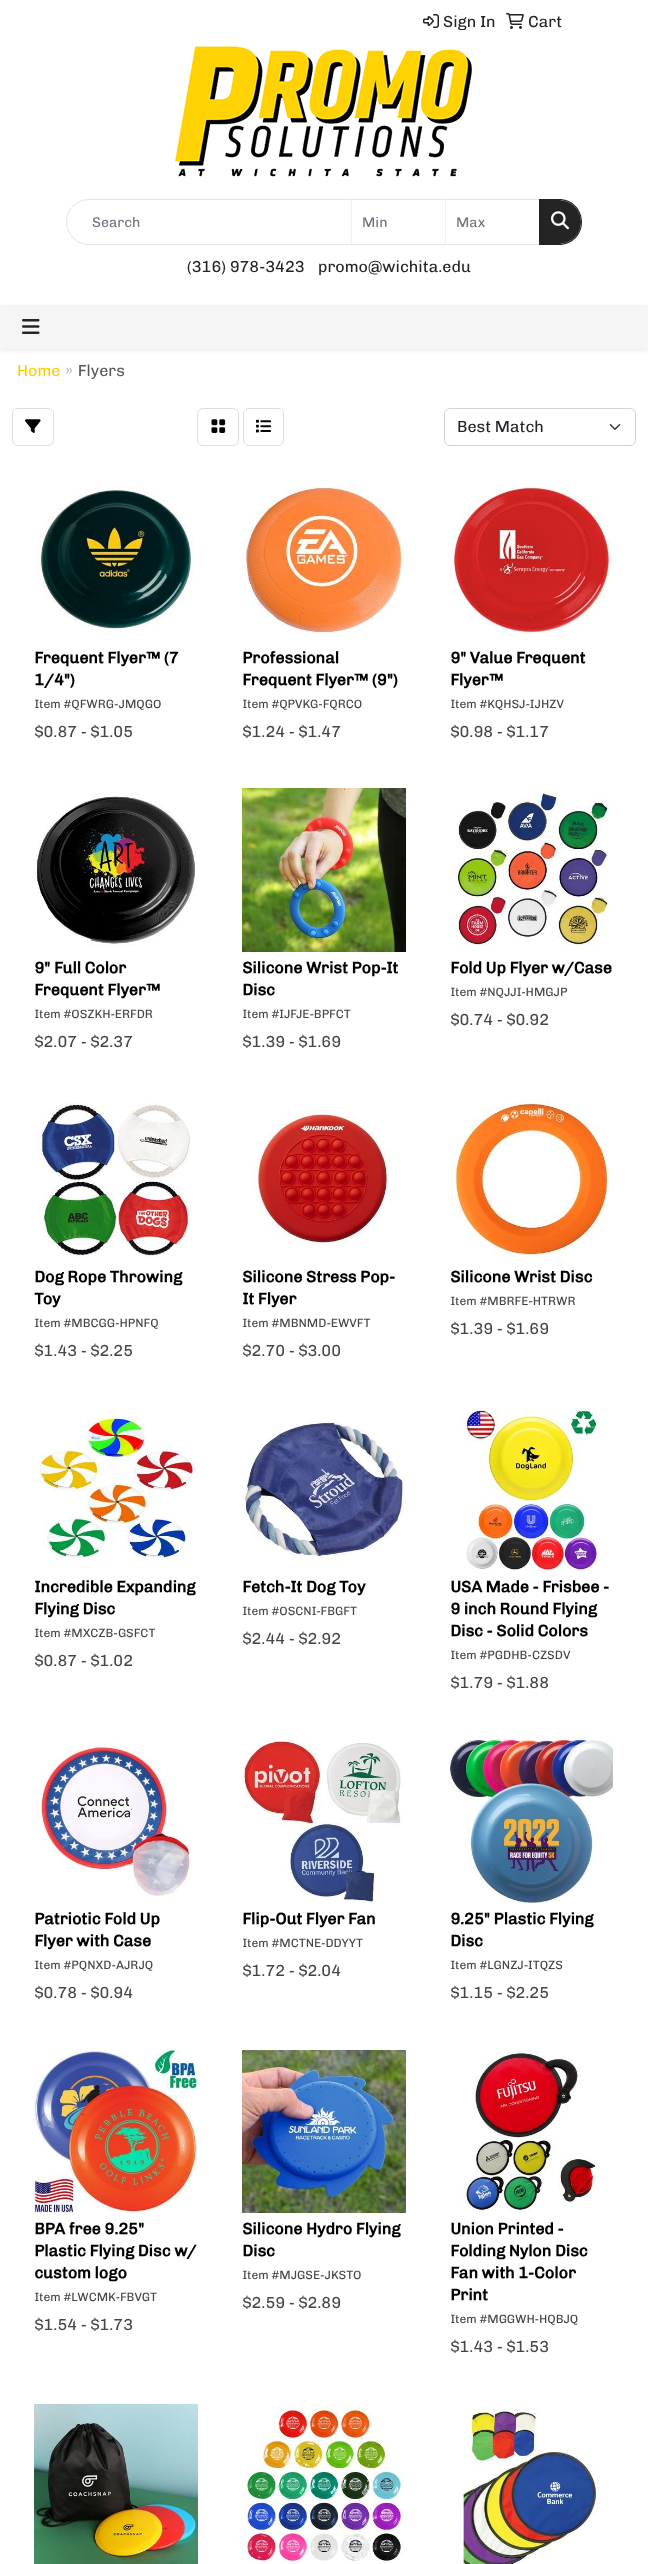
<!DOCTYPE html>
<meta charset="utf-8">
<style>body { margin: 0 } canvas { display: block }</style>
<canvas id="canvas" width="648" height="2564"></canvas>
<script type="module">
  const canvas = document.getElementById("canvas");
  const g = canvas.getContext("2d");
  g.miterLimit = 4;
  g.fontKerning = "normal";
  function drawText(s, x, y, [font, color]) {
    g.font = font;
    g.fillStyle = color;
    g.fillText(s, x, y);
  }
  function fillBox(x, y, w, h, color) {
    g.fillStyle = color;
    g.fillRect(x, y, w, h);
  }
  async function drawPicture(src, x, y, w, h) {
    const img = new Image();
    img.src = src;
    await img.decode();
    g.drawImage(img, x, y, w, h);
  }

  const s1 = ["500 16px Chivo", "#242424"];
  const s2 = ["500 14px Chivo", "#6C757D"];

  fillBox(0, 0, 648, 2564, "#FFFFFF");
  await drawPicture("pic1.png", 423, 14, 16, 14);
  drawText("Sign In", 443, 27, s1);
  await drawPicture("pic2.png", 506, 13, 18, 16);
  drawText("Cart", 528, 27, s1);
  await drawPicture("pic3.png", 175, 46, 298, 131);
  g.beginPath();
  g.roundRect(66.5, 199.5, 285, 45, [22.5, 0, 0, 22.5]);
  g.strokeStyle = "#E4E4E4";
  g.stroke();
  drawText("Search", 92, 227, s2);
  fillBox(351, 199, 189, 1, "#E4E4E4");
  fillBox(351, 244, 189, 1, "#E4E4E4");
  fillBox(351, 199, 1, 46, "#EFEFEF");
  drawText("Min", 362, 227, s2);
  fillBox(445, 199, 1, 46, "#EFEFEF");
  drawText("Max", 456, 227, s2);
  g.fillStyle = "#242424";
  g.beginPath();
  g.roundRect(539, 200, 42, 44, [0, 22, 22, 0]);
  g.fill();
  g.beginPath();
  g.moveTo(539, 199);
  g.lineTo(559, 199);
  g.bezierCurveTo(572, 199, 582, 209, 582, 222);
  g.bezierCurveTo(582, 235, 572, 245, 559, 245);
  g.lineTo(539, 245);
  g.closePath();
  g.moveTo(539, 200);
  g.lineTo(559, 200);
  g.bezierCurveTo(571, 200, 581, 210, 581, 222);
  g.bezierCurveTo(581, 234, 571, 244, 559, 244);
  g.lineTo(539, 244);
  g.closePath();
  g.fill("evenodd");
  await drawPicture("pic4.png", 551, 211, 18, 19);
  drawText("(316) 978-3423", 187, 272, s1);
  drawText("promo@wichita.edu", 318, 272, s1);
  g.fillStyle = "rgba(0, 0, 0, 0.07)";
  g.filter = "blur(2px)";
  g.beginPath();
  g.rect(0, 307, 648, 44);
  g.fill();
  g.filter = "none";
  fillBox(0, 305, 648, 44, "#F5F5F5");
  await drawPicture("pic5.png", 22, 319, 18, 15);
  await drawPicture("pic6.png", 12, 364, 624, 2200);
</script>
